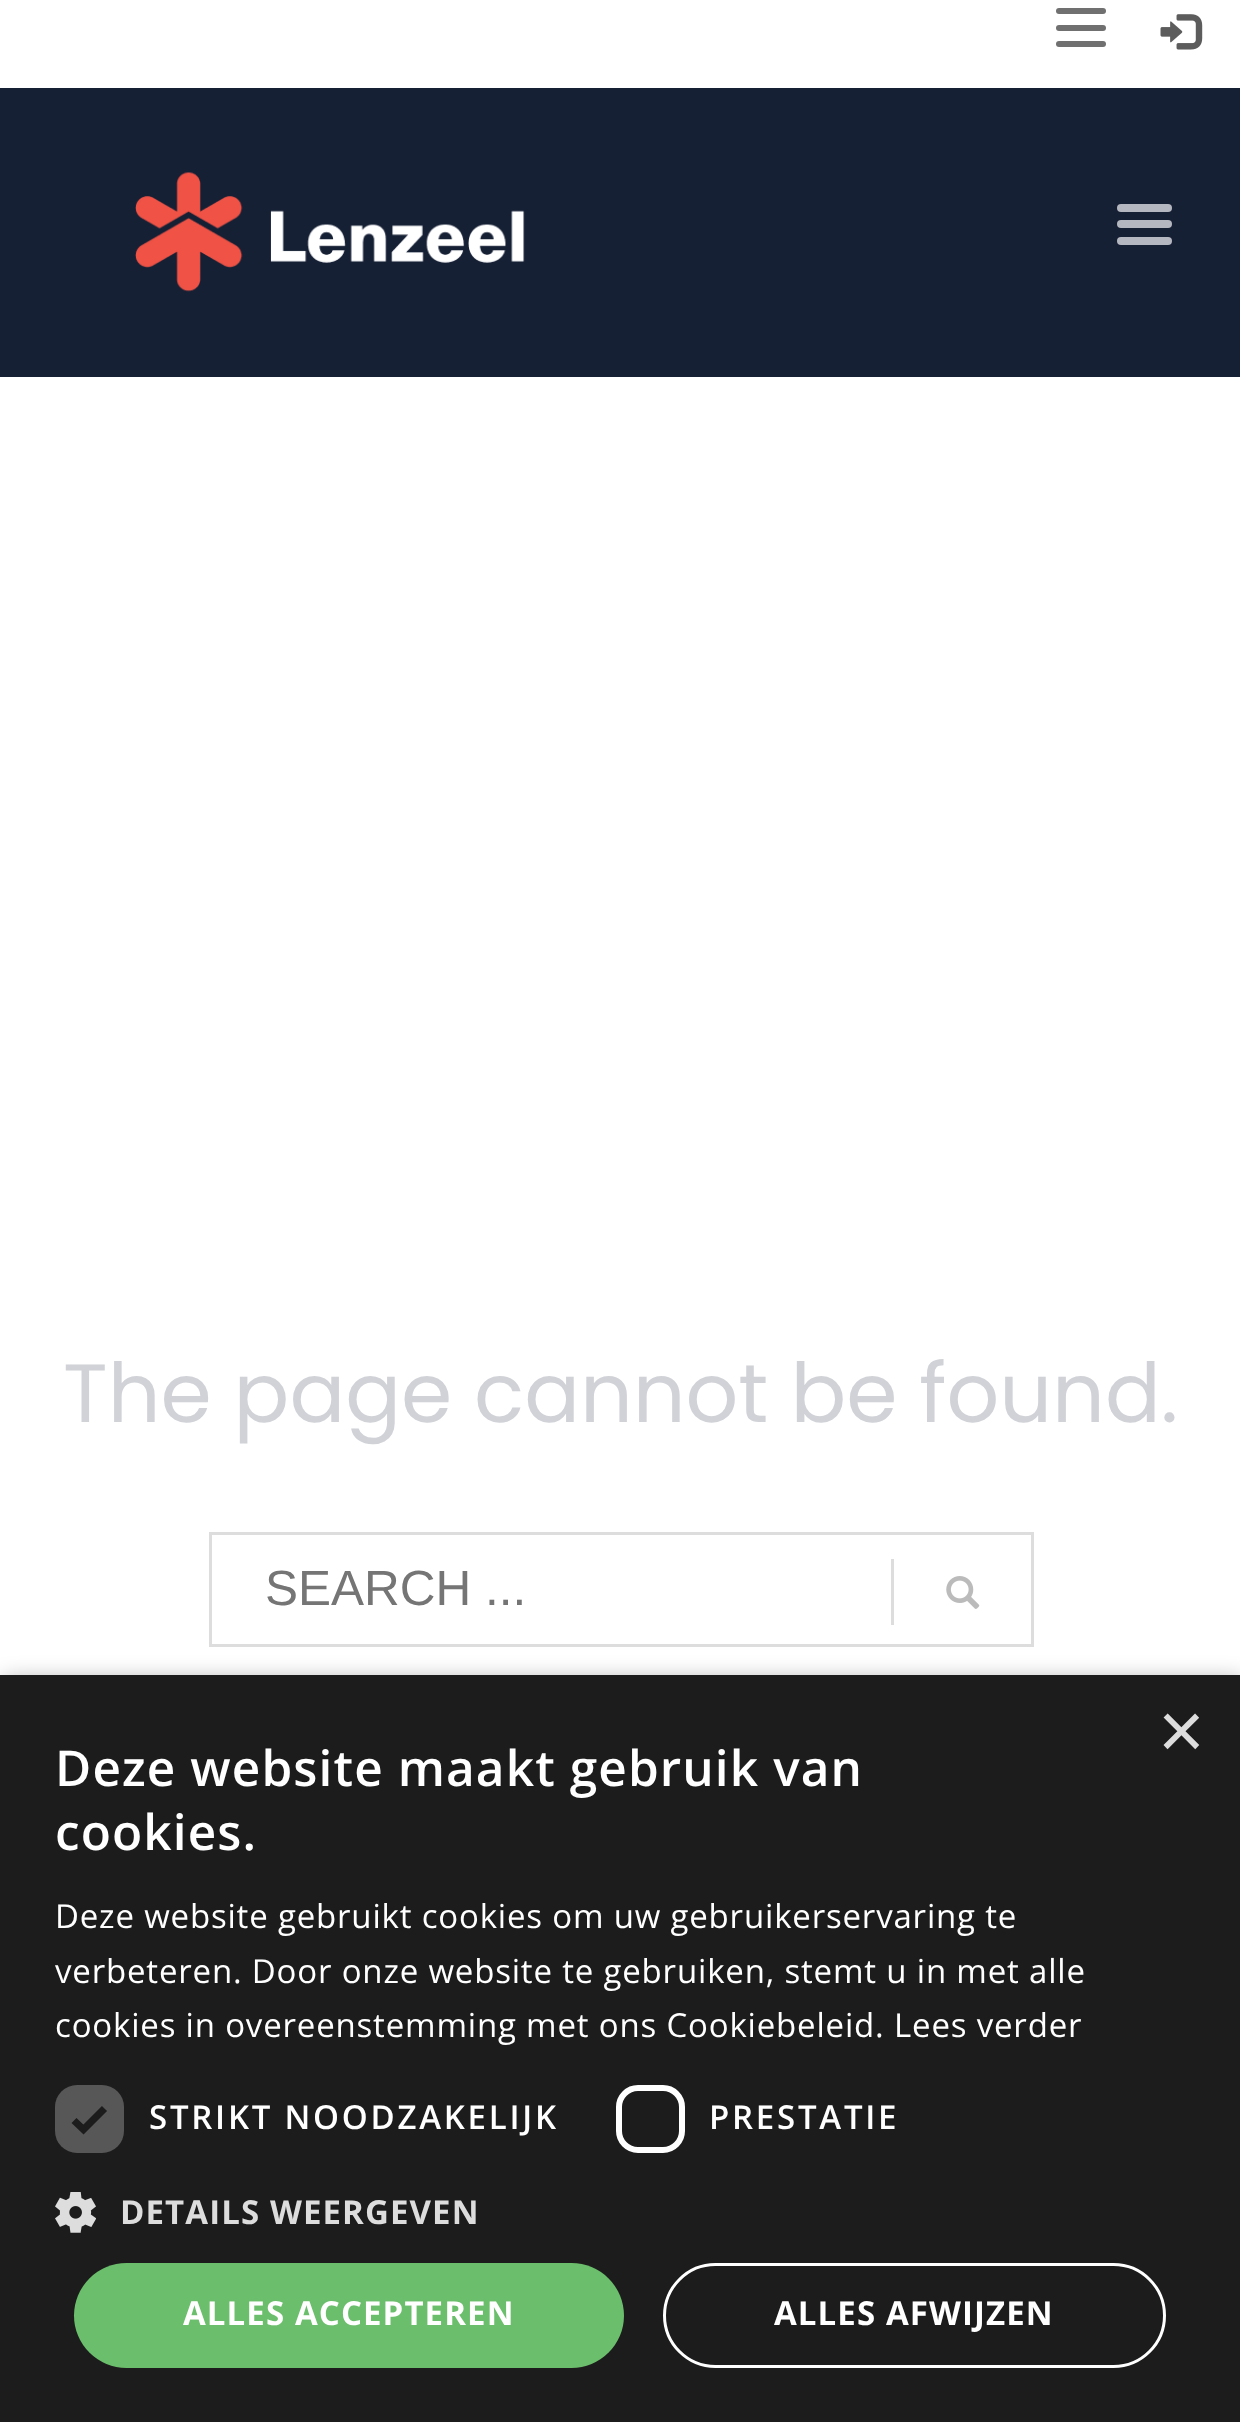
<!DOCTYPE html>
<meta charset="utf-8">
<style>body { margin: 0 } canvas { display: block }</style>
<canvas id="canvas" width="1240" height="2422"></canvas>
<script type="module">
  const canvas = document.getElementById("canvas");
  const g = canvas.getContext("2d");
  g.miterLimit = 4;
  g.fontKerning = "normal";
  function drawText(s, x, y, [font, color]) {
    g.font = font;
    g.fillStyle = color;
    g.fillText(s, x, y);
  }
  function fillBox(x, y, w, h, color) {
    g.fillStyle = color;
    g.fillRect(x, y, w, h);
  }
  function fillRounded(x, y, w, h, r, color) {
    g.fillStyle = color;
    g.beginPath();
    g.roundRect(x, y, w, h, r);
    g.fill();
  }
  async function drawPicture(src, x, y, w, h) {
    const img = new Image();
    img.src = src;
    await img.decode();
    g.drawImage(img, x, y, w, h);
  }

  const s1 = ["82.5px Poppins", "#D0D2D7"];
  const s2 = ["49.5px Liberation Sans", "#757575"];
  const s3 = ["80px Liberation Sans", "#DDDDDD"];
  const s4 = ["600 49.5px Open Sans", "#FFFFFF"];
  const s5 = ["33px Open Sans", "#FFFFFF"];
  const s6 = ["600 33px Open Sans", "#FFFFFF"];
  const s7 = ["bold 33px Open Sans", "#DDDDDD"];
  const s8 = ["bold 33px Open Sans", "#FFFFFF"];

  fillBox(0, 0, 1240, 2422, "#FFFFFF");
  fillBox(0, 88, 1240, 289, "#162035");
  fillRounded(1056, 41, 50, 6, 3, "#707070");
  fillRounded(1056, 25, 50, 6, 3, "#707070");
  fillRounded(1056, 8, 50, 6, 3, "#707070");
  await drawPicture("pic1.png", 1160, 14, 43, 36);
  await drawPicture("pic2.png", 135, 172, 390, 120);
  fillRounded(1117, 204, 55, 8, 4, "#B4B7BF");
  fillRounded(1117, 220, 55, 8, 4, "#B4B7BF");
  fillRounded(1117, 237, 55, 8, 4, "#B4B7BF");
  drawText("The page cannot be found.", 63, 1422, s1);
  g.strokeStyle = "#DDDDDD";
  g.lineWidth = 3;
  g.strokeRect(210.5, 1533.5, 822, 112);
  drawText("SEARCH ...", 265, 1605, s2);
  fillBox(891, 1559, 3, 66, "#DDDDDD");
  await drawPicture("pic3.png", 946, 1576, 34, 33);
  g.fillStyle = "rgba(0, 0, 0, 0.35)";
  g.filter = "blur(11px)";
  g.beginPath();
  g.rect(3, 1680, 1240, 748);
  g.fill();
  g.filter = "none";
  fillBox(0, 1675, 1240, 747, "#1C1C1C");
  drawText("×", 1158, 1758, s3);
  g.letterSpacing = "1.1px";
  drawText("Deze website maakt gebruik van", 55, 1786, s4);
  drawText("cookies.", 55, 1850, s4);
  g.letterSpacing = "0.82px";
  drawText("Deze website gebruikt cookies om uw gebruikerservaring te", 55, 1928, s5);
  drawText("verbeteren. Door onze website te gebruiken, stemt u in met alle", 55, 1983, s5);
  drawText("cookies in overeenstemming met ons Cookiebeleid. Lees verder", 55, 2037, s5);
  fillRounded(55, 2085, 69, 68, 22, "#575757");
  g.beginPath();
  g.moveTo(74, 2120.5);
  g.lineTo(83.5, 2129.5);
  g.lineTo(104.5, 2108.5);
  g.strokeStyle = "#1C1C1C";
  g.lineWidth = 7.2;
  g.stroke();
  g.letterSpacing = "2.75px";
  drawText("STRIKT NOODZAKELIJK", 149, 2129, s6);
  g.beginPath();
  g.roundRect(619, 2088, 63, 62, 19);
  g.strokeStyle = "#FFFFFF";
  g.lineWidth = 6;
  g.stroke();
  drawText("PRESTATIE", 709, 2129, s6);
  await drawPicture("pic4.png", 55, 2192, 41, 41);
  g.letterSpacing = "1.1px";
  drawText("DETAILS WEERGEVEN", 120, 2224, s7);
  fillRounded(74, 2263, 550, 105, 52.5, "#6BBE6B");
  drawText("ALLES ACCEPTEREN", 183, 2325, s8);
  g.beginPath();
  g.roundRect(664.5, 2264.5, 500, 102, 51);
  g.lineWidth = 3;
  g.stroke();
  drawText("ALLES AFWIJZEN", 774, 2325, s8);
</script>
